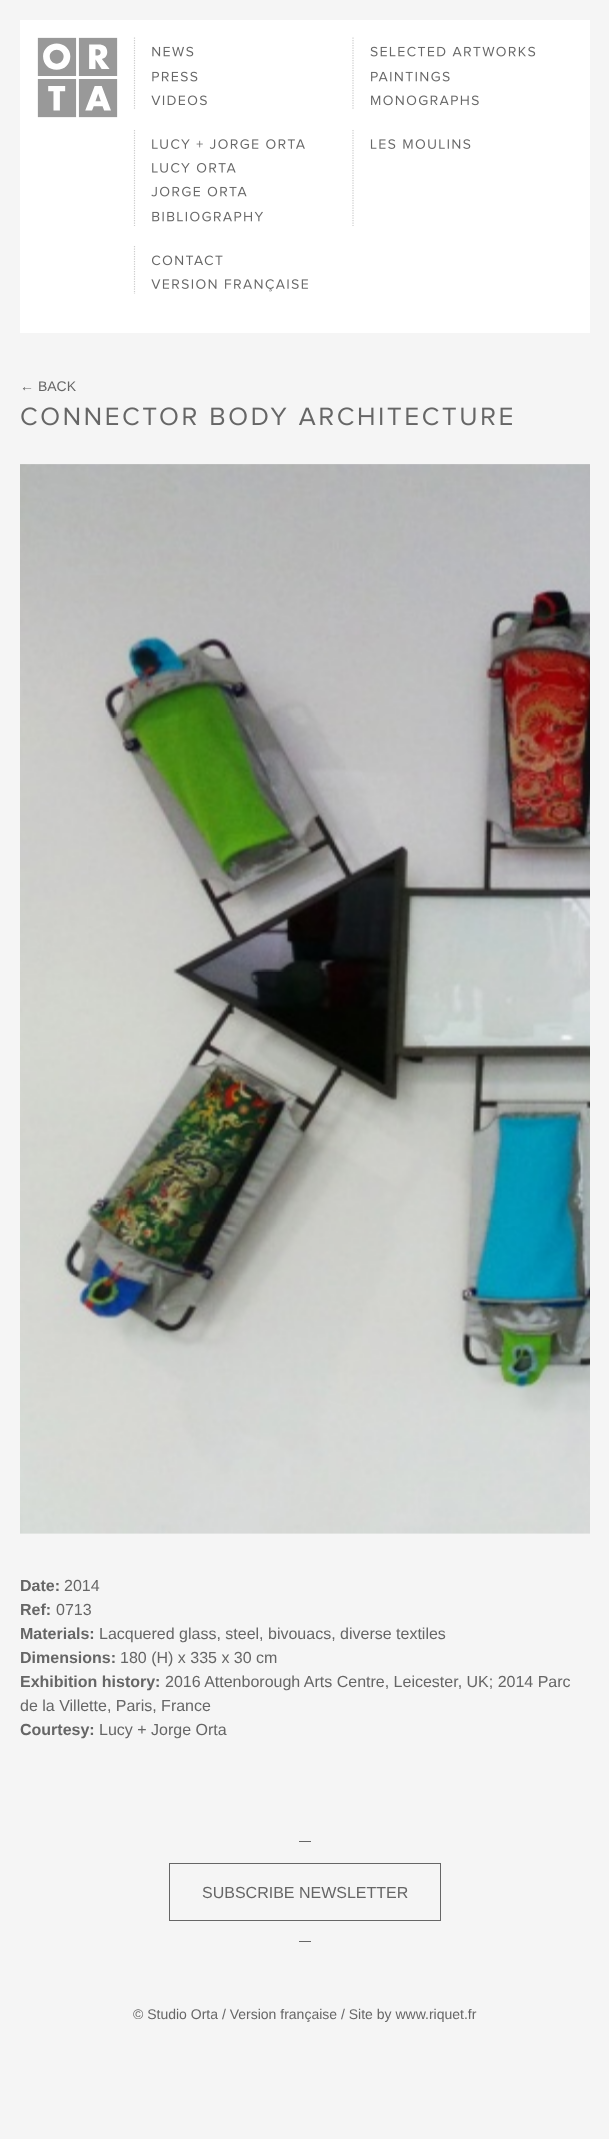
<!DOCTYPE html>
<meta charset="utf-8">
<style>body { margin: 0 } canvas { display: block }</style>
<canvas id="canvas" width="609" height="2139"></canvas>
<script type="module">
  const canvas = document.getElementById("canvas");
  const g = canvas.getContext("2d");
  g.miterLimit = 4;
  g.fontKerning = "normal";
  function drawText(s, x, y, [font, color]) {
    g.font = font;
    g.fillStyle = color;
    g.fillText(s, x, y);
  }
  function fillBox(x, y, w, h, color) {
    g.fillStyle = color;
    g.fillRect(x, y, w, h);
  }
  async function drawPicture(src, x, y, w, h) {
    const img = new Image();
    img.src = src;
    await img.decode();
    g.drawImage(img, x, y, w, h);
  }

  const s1 = ["14px Liberation Sans", "#666666"];
  const s2 = ["bold 16px Liberation Sans", "#666666"];
  const s3 = ["16px Liberation Sans", "#666666"];

  fillBox(0, 0, 609, 2139, "#F5F5F5");
  fillBox(20, 20, 570, 313, "#FFFFFF");
  await drawPicture("pic1.png", 37, 37, 81, 81);
  g.beginPath();
  g.moveTo(134.5, 37.5);
  g.lineTo(134.5, 110);
  g.strokeStyle = "#CCCCCC";
  g.lineWidth = 1.2;
  g.setLineDash([1.25, 1.25]);
  g.stroke();
  await drawPicture("pic2.png", 152, 46, 42, 11);
  await drawPicture("pic3.png", 152, 71, 46, 11);
  await drawPicture("pic4.png", 151, 95, 56, 11);
  g.beginPath();
  g.moveTo(353, 37.5);
  g.lineTo(353, 110);
  g.stroke();
  await drawPicture("pic5.png", 370, 46, 166, 11);
  await drawPicture("pic6.png", 371, 71, 79, 11);
  await drawPicture("pic7.png", 371, 95, 108, 11);
  g.beginPath();
  g.moveTo(134.5, 130);
  g.lineTo(134.5, 226);
  g.stroke();
  await drawPicture("pic8.png", 152, 139, 153, 10);
  await drawPicture("pic9.png", 152, 163, 84, 10);
  await drawPicture("pic10.png", 151, 186, 96, 11);
  await drawPicture("pic11.png", 152, 211, 111, 11);
  g.beginPath();
  g.moveTo(353, 130);
  g.lineTo(353, 226);
  g.stroke();
  await drawPicture("pic12.png", 370, 139, 101, 10);
  g.beginPath();
  g.moveTo(134.5, 246);
  g.lineTo(134.5, 294);
  g.stroke();
  await drawPicture("pic13.png", 152, 255, 71, 11);
  await drawPicture("pic14.png", 151, 279, 157, 13);
  drawText("← BACK", 20, 391, s1);
  await drawPicture("pic15.png", 21, 407, 491, 19);
  await drawPicture("pic16.png", 20, 464, 570, 1070);
  drawText("Date:", 20, 1591, s2);
  drawText("2014", 64, 1591, s3);
  drawText("Ref:", 20, 1615, s2);
  drawText("0713", 56, 1615, s3);
  drawText("Materials:", 20, 1639, s2);
  drawText("Lacquered glass, steel, bivouacs, diverse textiles", 99, 1639, s3);
  drawText("Dimensions:", 20, 1663, s2);
  drawText("180 (H) x 335 x 30 cm", 120, 1663, s3);
  drawText("Exhibition history:", 20, 1687, s2);
  drawText("2016 Attenborough Arts Centre, Leicester, UK; 2014 Parc", 165, 1687, s3);
  drawText("de la Villette, Paris, France", 20, 1711, s3);
  drawText("Courtesy:", 20, 1735, s2);
  drawText("Lucy + Jorge Orta", 99, 1735, s3);
  fillBox(299, 1841, 12, 1, "#666666");
  g.strokeStyle = "#666666";
  g.lineWidth = 1;
  g.setLineDash([]);
  g.strokeRect(169.5, 1863.5, 271, 57);
  drawText("SUBSCRIBE NEWSLETTER", 202, 1898, s3);
  fillBox(299, 1941, 12, 1, "#666666");
  drawText("© Studio Orta / Version française / Site by www.riquet.fr", 133, 2019, s1);
</script>
